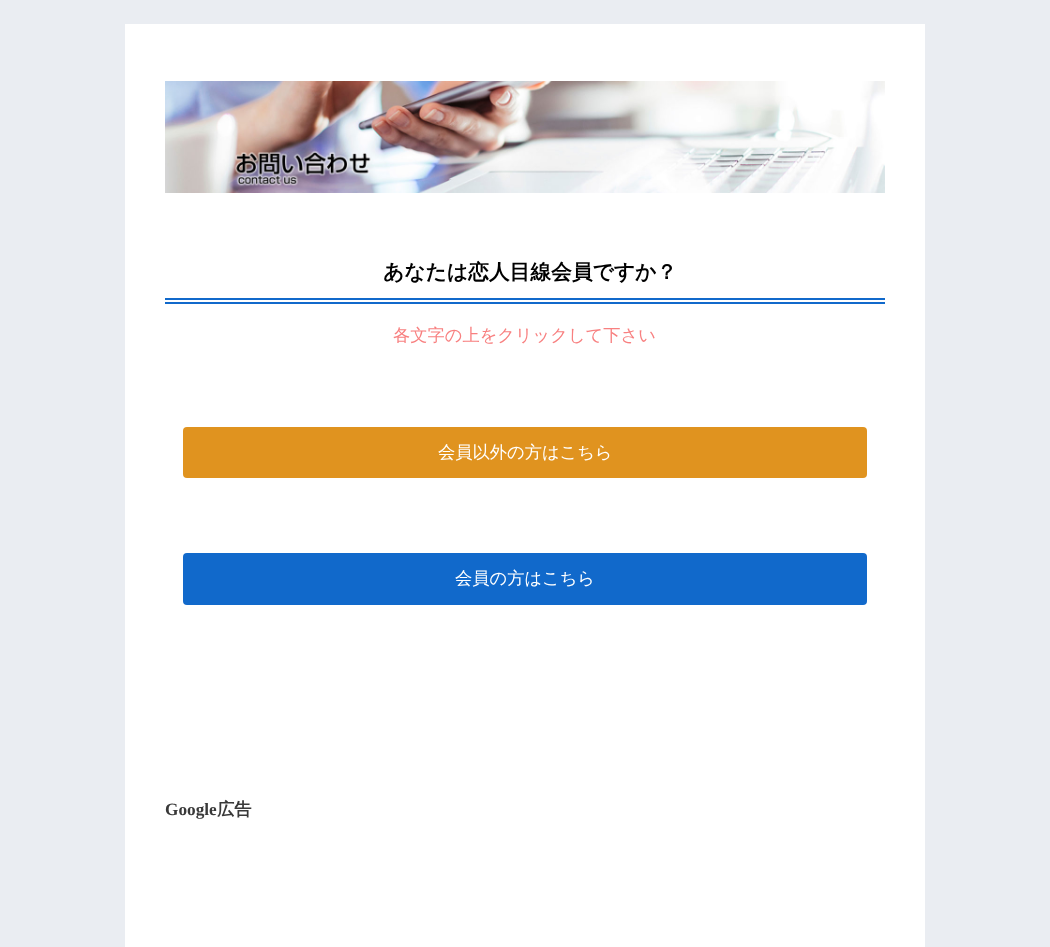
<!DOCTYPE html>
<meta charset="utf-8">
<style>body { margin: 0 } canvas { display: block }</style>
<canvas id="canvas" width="1050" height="947"></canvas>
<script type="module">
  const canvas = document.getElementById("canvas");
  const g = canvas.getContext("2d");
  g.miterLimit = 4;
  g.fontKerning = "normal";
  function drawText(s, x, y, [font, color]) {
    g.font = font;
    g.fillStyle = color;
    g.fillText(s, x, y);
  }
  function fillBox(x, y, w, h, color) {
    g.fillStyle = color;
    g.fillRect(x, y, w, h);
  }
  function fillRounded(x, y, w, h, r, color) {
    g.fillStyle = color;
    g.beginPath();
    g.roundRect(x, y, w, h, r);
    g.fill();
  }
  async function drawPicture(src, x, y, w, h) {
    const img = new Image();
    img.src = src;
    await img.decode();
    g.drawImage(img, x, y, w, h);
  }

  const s1 = ["bold 20.75px WenQuanYi Zen Hei", "#000000"];
  const s2 = ["500 17.25px WenQuanYi Zen Hei", "#F88080"];
  const s3 = ["500 17.25px WenQuanYi Zen Hei", "#FFFFFF"];
  const s4 = ["bold 17.25px Liberation Serif", "#393939"];
  const s5 = ["bold 17.25px WenQuanYi Zen Hei", "#393939"];

  fillBox(0, 0, 1050, 947, "#EAEDF2");
  fillBox(125, 24, 800, 923, "#FFFFFF");
  await drawPicture("pic1.png", 165, 81, 720, 112);
  fillBox(165, 298, 720, 2, "#1169CB");
  fillBox(165, 302, 720, 2, "#1169CB");
  drawText("あなたは恋人目線会員ですか？", 383, 279, s1);
  drawText("各文字の上をクリックして下さい", 393, 341, s2);
  fillRounded(183, 427, 684, 51, 4, "#E0931F");
  drawText("会員以外の方はこちら", 438, 458, s3);
  fillRounded(183, 553, 684, 52, 4, "#1169CB");
  drawText("会員の方はこちら", 455, 584, s3);
  drawText("Google", 165, 815, s4);
  drawText("広告", 217, 815, s5);
</script>
